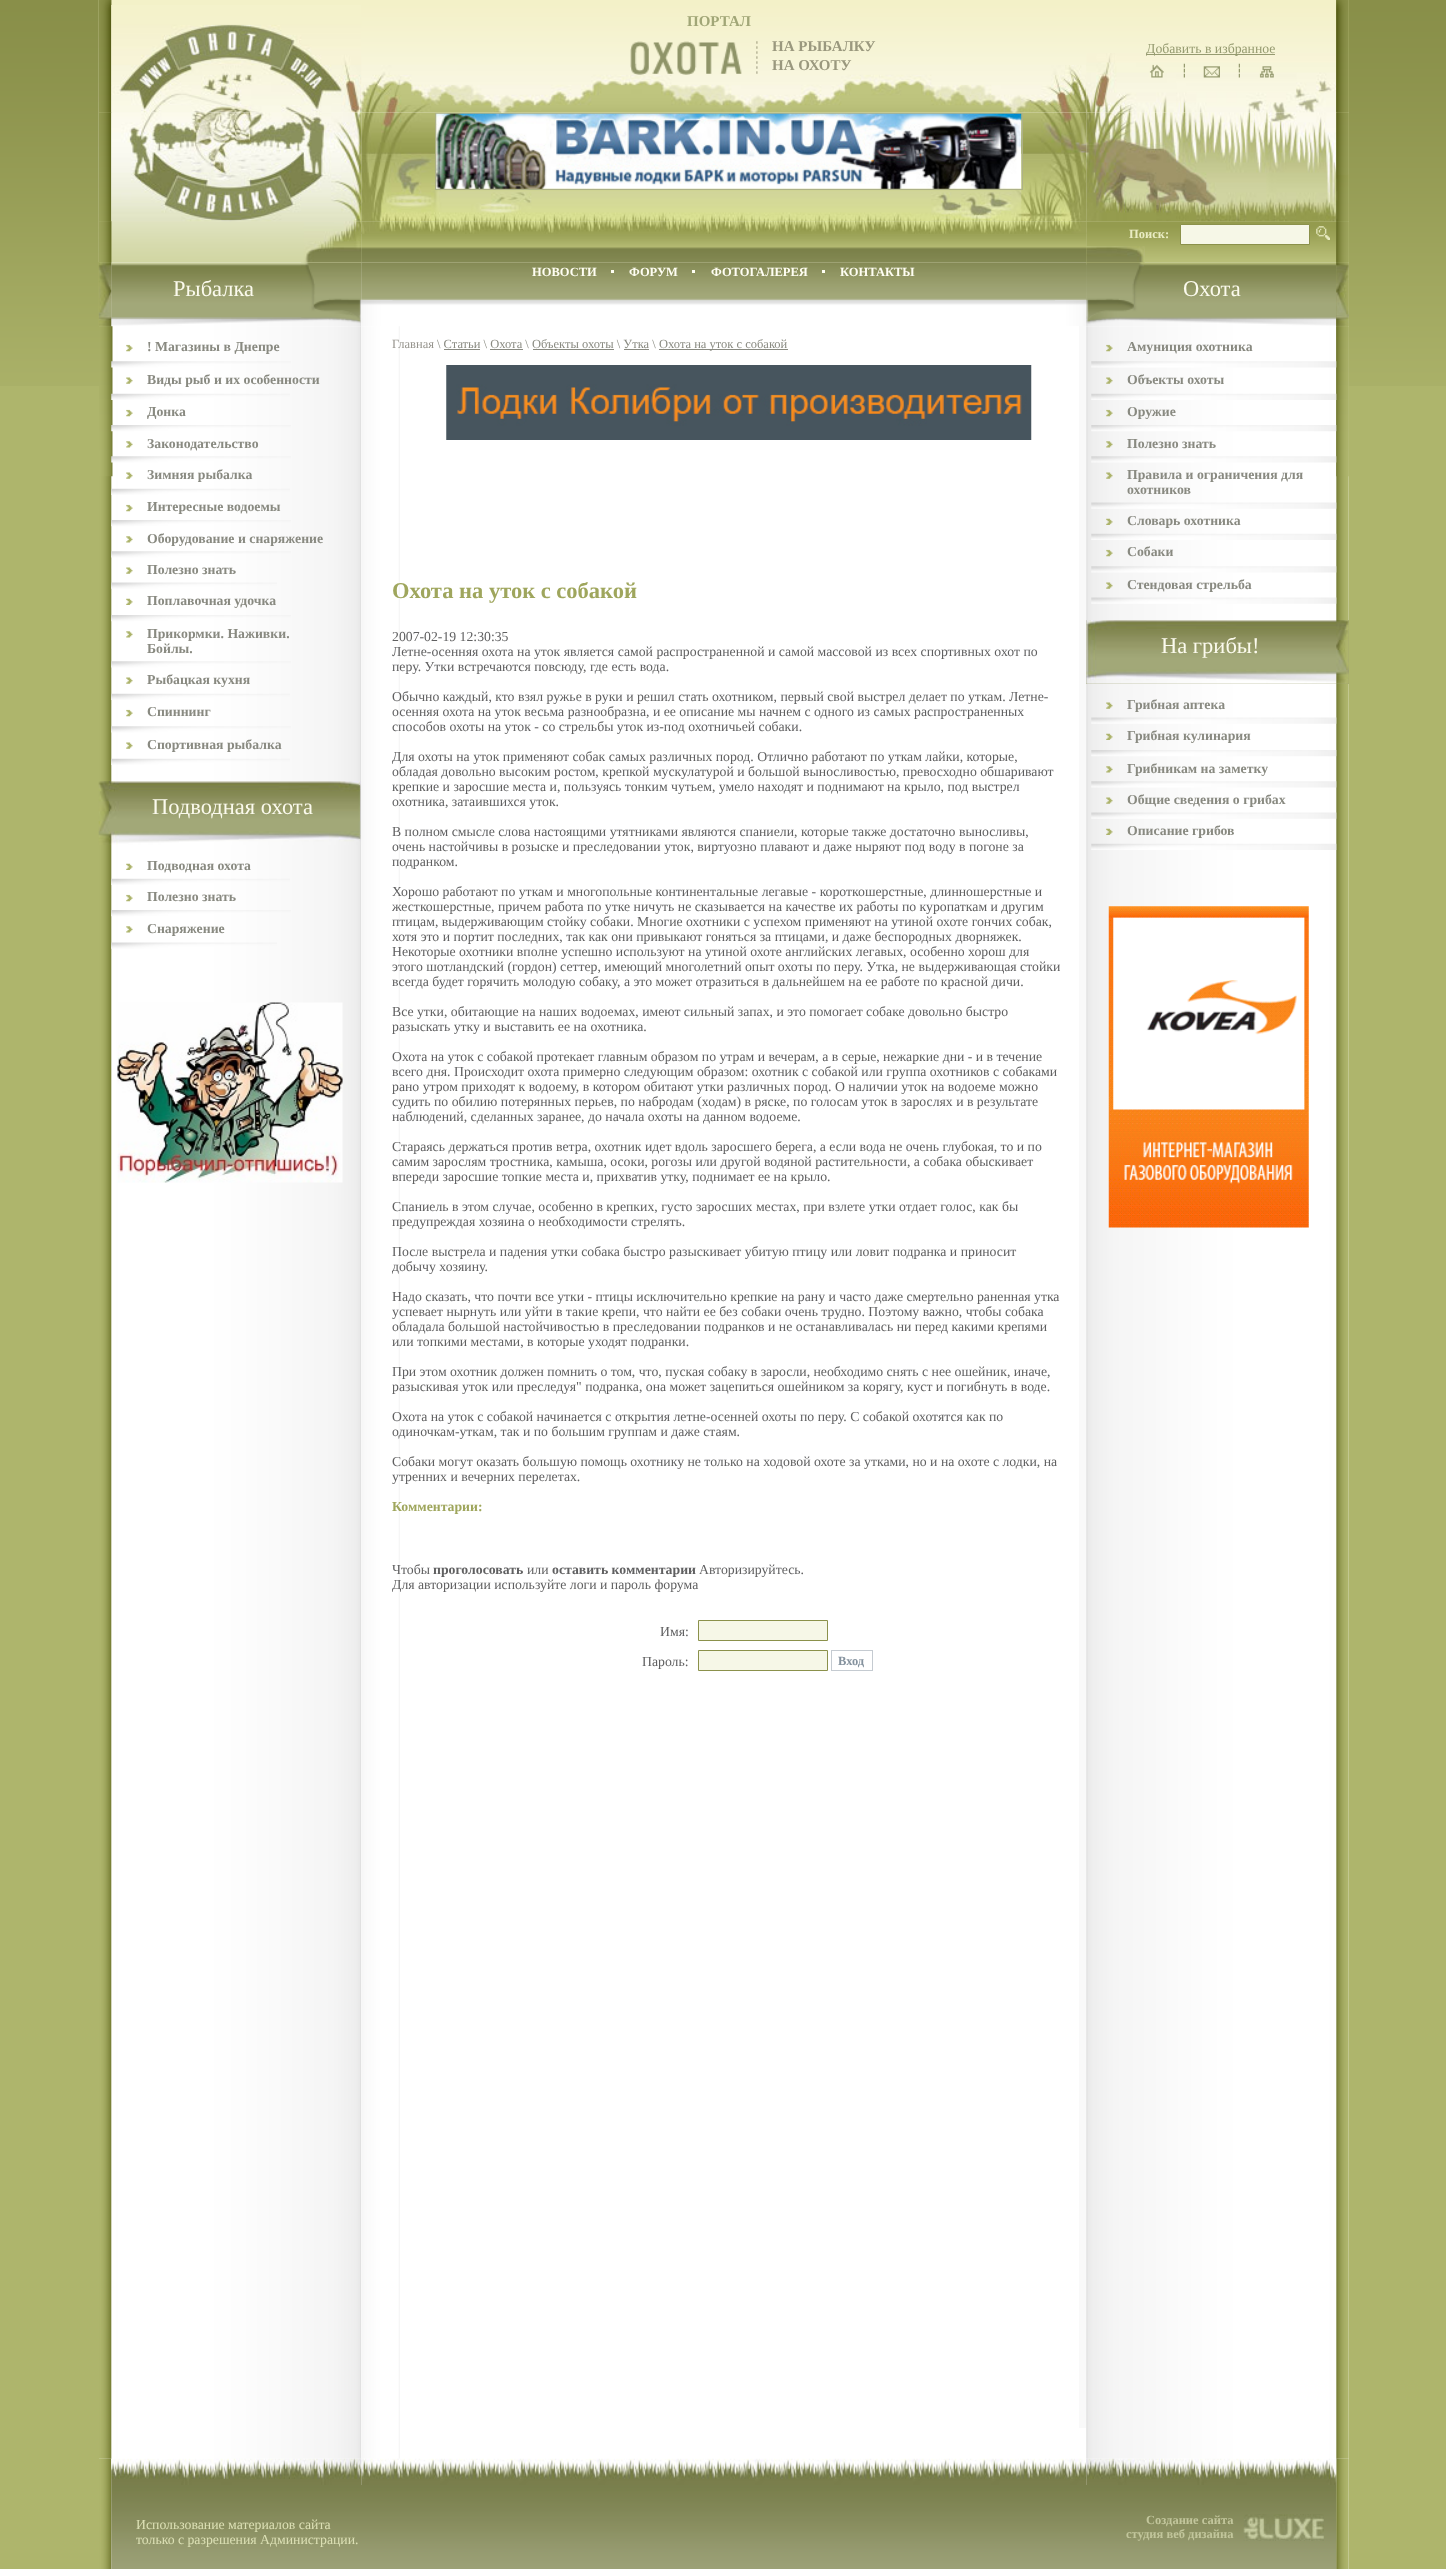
<!DOCTYPE html>
<meta charset="utf-8">
<style>body { margin: 0 } canvas { display: block }</style>
<canvas id="canvas" width="1446" height="2569"></canvas>
<script type="module">
  const canvas = document.getElementById("canvas");
  const g = canvas.getContext("2d");
  g.miterLimit = 4;
  g.fontKerning = "normal";
  function drawText(s, x, y, [font, color]) {
    g.font = font;
    g.fillStyle = color;
    g.fillText(s, x, y);
  }
  function fillBox(x, y, w, h, color) {
    g.fillStyle = color;
    g.fillRect(x, y, w, h);
  }
  async function drawPicture(src, x, y, w, h) {
    const img = new Image();
    img.src = src;
    await img.decode();
    g.drawImage(img, x, y, w, h);
  }

  const s1 = ["bold 15px Liberation Serif", "#A1A677"];
  const s2 = ["bold 15px Liberation Serif", "#9A987E"];
  const s3 = ["13.75px Liberation Serif", "#969B70"];
  const s4 = ["bold 12.5px Liberation Serif", "#EAEDC4"];
  const s5 = ["bold 12.5px Liberation Serif", "#FFFEF3"];
  const s6 = ["22.5px Liberation Serif", "#FBFAED"];
  const s7 = ["bold 13.75px Liberation Serif", "#898A81"];
  const s8 = ["12.5px Liberation Serif", "#96948D"];
  const s9 = ["12.5px Liberation Serif", "#898A81"];
  const s10 = ["bold 22.5px Liberation Serif", "#9FA65D"];
  const s11 = ["13.75px Liberation Serif", "#606061"];
  const s12 = ["bold 13.75px Liberation Serif", "#9FA65D"];
  const s13 = ["bold 13.75px Liberation Serif", "#606061"];
  const s14 = ["bold 12.5px Liberation Serif", "#85929E"];
  const s15 = ["13.75px Liberation Serif", "#DCE0B5"];
  const s16 = ["bold 12.5px Liberation Serif", "#C2C69C"];

  fillBox(0, 0, 1446, 2569, "#AEB56C");
  await drawPicture("pic1.png", 0, 0, 1446, 386);
  fillBox(99, 0, 1250, 2569, "#FFFFFF");
  await drawPicture("pic2.png", 98, 0, 1251, 263);
  await drawPicture("pic3.png", 111, 0, 1, 5);
  await drawPicture("pic4.png", 98, 0, 14, 5);
  await drawPicture("pic5.png", 1336, 0, 13, 5);
  await drawPicture("pic6.png", 1336, 0, 13, 5);
  await drawPicture("pic7.png", 99, 5, 13, 108);
  await drawPicture("pic19.png", 99, 112, 13, 110);
  await drawPicture("pic8.png", 98, 5, 14, 108);
  await drawPicture("pic10.png", 361, 65, 726, 48);
  await drawPicture("pic12.png", 1086, 53, 250, 60);
  await drawPicture("pic22.png", 361, 112, 726, 110);
  await drawPicture("pic9.png", 111, 5, 251, 108);
  drawText("ПОРТАЛ", 687, 26, s1);
  await drawPicture("pic11.png", 630, 41, 128, 34);
  drawText("НА РЫБАЛКУ", 772, 51, s2);
  drawText("НА ОХОТУ", 772, 70, s2);
  fillBox(1146, 54, 129, 1, "#969B70");
  drawText("Добавить в избранное", 1146, 53, s3);
  await drawPicture("pic13.png", 1149, 64, 15, 14);
  await drawPicture("pic14.png", 1183, 63, 2, 15);
  await drawPicture("pic15.png", 1203, 66, 17, 12);
  await drawPicture("pic14.png", 1238, 63, 2, 15);
  await drawPicture("pic16.png", 1259, 66, 15, 12);
  await drawPicture("pic17.png", 1336, 5, 13, 108);
  await drawPicture("pic25.png", 1336, 112, 13, 110);
  await drawPicture("pic18.png", 1336, 5, 13, 108);
  await drawPicture("pic27.png", 99, 221, 13, 42);
  await drawPicture("pic20.png", 98, 112, 14, 110);
  await drawPicture("pic29.png", 303, 221, 59, 42);
  await drawPicture("pic21.png", 111, 112, 251, 110);
  g.strokeStyle = "#ADB187";
  g.strokeRect(435.5, 113.5, 587, 76);
  await drawPicture("pic23.png", 436, 113, 586, 76);
  await drawPicture("pic30.png", 361, 232, 726, 31);
  await drawPicture("pic32.png", 1086, 221, 251, 42);
  await drawPicture("pic35.png", 1336, 221, 13, 42);
  await drawPicture("pic24.png", 1086, 112, 251, 110);
  await drawPicture("pic26.png", 1336, 112, 13, 110);
  await drawPicture("pic37.png", 98, 262, 14, 65);
  await drawPicture("pic44.png", 111, 262, 251, 64);
  await drawPicture("pic45.png", 111, 262, 251, 65);
  await drawPicture("pic28.png", 98, 221, 14, 42);
  await drawPicture("pic31.png", 361, 221, 726, 13);
  await drawPicture("pic33.png", 1086, 246, 59, 17);
  drawText("Поиск:", 1129, 238, s4);
  g.fillStyle = "#F6F7E7";
  g.beginPath();
  g.rect(1180.5, 224.5, 129, 20);
  g.fill();
  g.strokeStyle = "#8B914B";
  g.stroke();
  await drawPicture("pic34.png", 1316, 226, 14, 14);
  await drawPicture("pic39.png", 361, 262, 726, 64);
  await drawPicture("pic40.png", 1055, 300, 32, 26);
  await drawPicture("pic46.png", 1086, 262, 251, 63);
  await drawPicture("pic47.png", 1086, 262, 251, 65);
  await drawPicture("pic42.png", 1336, 262, 13, 65);
  await drawPicture("pic36.png", 1336, 221, 13, 42);
  await drawPicture("pic48.png", 99, 326, 263, 2133);
  await drawPicture("pic49.png", 99, 326, 14, 151);
  await drawPicture("pic38.png", 98, 262, 14, 65);
  drawText("НОВОСТИ", 532, 276, s5);
  fillBox(611, 270, 3, 3, "#FFFEF3");
  drawText("ФОРУМ", 629, 276, s5);
  fillBox(692, 270, 3, 3, "#FFFEF3");
  drawText("ФОТОГАЛЕРЕЯ", 711, 276, s5);
  fillBox(822, 270, 3, 3, "#FFFEF3");
  drawText("КОНТАКТЫ", 840, 276, s5);
  await drawPicture("pic41.png", 361, 300, 32, 26);
  await drawPicture("pic66.png", 1086, 326, 263, 2133);
  await drawPicture("pic67.png", 1336, 326, 13, 151);
  await drawPicture("pic43.png", 1336, 262, 13, 65);
  drawText("Рыбалка", 173, 296, s6);
  drawText("Охота", 1183, 296, s6);
  await drawPicture("pic50.png", 126, 344, 7, 8);
  drawText("! Магазины в Днепре", 147, 351, s7);
  await drawPicture("pic51.png", 111, 361, 180, 7);
  await drawPicture("pic52.png", 126, 377, 7, 7);
  drawText("Виды рыб и их особенности", 147, 384, s7);
  await drawPicture("pic53.png", 111, 393, 179, 7);
  await drawPicture("pic50.png", 126, 409, 7, 8);
  drawText("Донка", 147, 416, s7);
  await drawPicture("pic54.png", 111, 425, 180, 7);
  await drawPicture("pic55.png", 126, 441, 7, 7);
  drawText("Законодательство", 147, 448, s7);
  await drawPicture("pic56.png", 111, 456, 180, 7);
  await drawPicture("pic52.png", 126, 472, 7, 7);
  drawText("Зимняя рыбалка", 147, 479, s7);
  await drawPicture("pic57.png", 111, 488, 179, 7);
  await drawPicture("pic50.png", 126, 504, 7, 8);
  drawText("Интересные водоемы", 147, 511, s7);
  await drawPicture("pic58.png", 111, 520, 180, 7);
  await drawPicture("pic55.png", 126, 536, 7, 7);
  drawText("Оборудование и снаряжение", 147, 543, s7);
  await drawPicture("pic59.png", 111, 551, 180, 7);
  await drawPicture("pic52.png", 126, 567, 7, 7);
  drawText("Полезно знать", 147, 574, s7);
  await drawPicture("pic60.png", 111, 582, 166, 7);
  await drawPicture("pic61.png", 126, 598, 7, 7);
  drawText("Поплавочная удочка", 147, 605, s7);
  await drawPicture("pic58.png", 111, 615, 180, 7);
  await drawPicture("pic55.png", 126, 631, 7, 7);
  drawText("Прикормки. Наживки.", 147, 638, s7);
  drawText("Бойлы.", 147, 653, s7);
  await drawPicture("pic59.png", 111, 661, 180, 7);
  await drawPicture("pic52.png", 126, 677, 7, 7);
  drawText("Рыбацкая кухня", 147, 684, s7);
  await drawPicture("pic57.png", 111, 693, 179, 7);
  await drawPicture("pic50.png", 126, 709, 7, 8);
  drawText("Спиннинг", 147, 716, s7);
  await drawPicture("pic59.png", 111, 726, 180, 7);
  await drawPicture("pic52.png", 126, 742, 7, 7);
  drawText("Спортивная рыбалка", 147, 749, s7);
  await drawPicture("pic57.png", 111, 758, 179, 7);
  await drawPicture("pic62.png", 98, 781, 264, 64);
  drawText("Подводная охота", 152, 814, s6);
  await drawPicture("pic61.png", 126, 863, 7, 7);
  drawText("Подводная охота", 147, 870, s7);
  await drawPicture("pic57.png", 111, 878, 179, 7);
  await drawPicture("pic50.png", 126, 894, 7, 8);
  drawText("Полезно знать", 147, 901, s7);
  await drawPicture("pic58.png", 111, 910, 180, 7);
  await drawPicture("pic55.png", 126, 926, 7, 7);
  drawText("Снаряжение", 147, 933, s7);
  await drawPicture("pic60.png", 111, 942, 166, 7);
  await drawPicture("pic63.png", 117, 1002, 226, 181);
  await drawPicture("pic64.png", 361, 326, 39, 2133);
  fillBox(1079, 326, 7, 2102, "#F9F9F9");
  drawText("Главная", 392, 348, s8);
  drawText("\\ Статьи \\ Охота \\ Объекты охоты \\ Утка \\", 437, 348, s9);
  fillBox(659, 349, 129, 1, "#898A81");
  drawText("Охота на уток с собакой", 659, 348, s9);
  fillBox(444, 349, 36, 1, "#898A81");
  fillBox(490, 349, 33, 1, "#898A81");
  fillBox(533, 349, 81, 1, "#898A81");
  fillBox(624, 349, 25, 1, "#898A81");
  await drawPicture("pic65.png", 446, 365, 586, 75);
  drawText("Охота на уток с собакой", 392, 598, s10);
  drawText("2007-02-19 12:30:35", 392, 641, s11);
  drawText("Летне-осенняя охота на уток является самой распространенной и самой массовой из всех спортивных охот по", 392, 656, s11);
  drawText("перу. Утки встречаются повсюду, где есть вода.", 392, 671, s11);
  drawText("Обычно каждый, кто взял ружье в руки и решил стать охотником, первый свой выстрел делает по уткам. Летне-", 392, 701, s11);
  drawText("осенняя охота на уток весьма разнообразна, и ее описание мы начнем с одного из самых распространенных", 392, 716, s11);
  drawText("способов охоты на уток - со стрельбы уток из-под охотничьей собаки.", 392, 731, s11);
  drawText("Для охоты на уток применяют собак самых различных пород. Отлично работают по уткам лайки, которые,", 392, 761, s11);
  drawText("обладая довольно высоким ростом, крепкой мускулатурой и большой выносливостью, превосходно обшаривают", 392, 776, s11);
  drawText("крепкие и заросшие места и, пользуясь тонким чутьем, умело находят и поднимают на крыло, под выстрел", 392, 791, s11);
  drawText("охотника, затаившихся уток.", 392, 806, s11);
  drawText("В полном смысле слова настоящими утятниками являются спаниели, которые также достаточно выносливы,", 392, 836, s11);
  drawText("очень настойчивы в розыске и преследовании уток, виртуозно плавают и даже ныряют под воду в погоне за", 392, 851, s11);
  drawText("подранком.", 392, 866, s11);
  drawText("Хорошо работают по уткам и многопольные континентальные легавые - короткошерстные, длинношерстные и", 392, 896, s11);
  drawText("жесткошерстные, причем работа по утке ничуть не сказывается на качестве их работы по куропаткам и другим", 392, 911, s11);
  drawText("птицам, выдерживающим стойку собаки. Многие охотники с успехом применяют на утиной охоте гончих собак,", 392, 926, s11);
  drawText("хотя это и портит последних, так как они привыкают гоняться за птицами, и даже беспородных дворняжек.", 392, 941, s11);
  drawText("Некоторые охотники вполне успешно используют на утиной охоте английских легавых, особенно хорош для", 392, 956, s11);
  drawText("этого шотландский (гордон) сеттер, имеющий многолетний опыт охоты по перу. Утка, не выдерживающая стойки", 392, 971, s11);
  drawText("всегда будет горячить молодую собаку, а это может отразиться в дальнейшем на ее работе по красной дичи.", 392, 986, s11);
  drawText("Все утки, обитающие на наших водоемах, имеют сильный запах, и это помогает собаке довольно быстро", 392, 1016, s11);
  drawText("разыскать утку и выставить ее на охотника.", 392, 1031, s11);
  drawText("Охота на уток с собакой протекает главным образом по утрам и вечерам, а в серые, нежаркие дни - и в течение", 392, 1061, s11);
  drawText("всего дня. Происходит охота примерно следующим образом: охотник с собакой или группа охотников с собаками", 392, 1076, s11);
  drawText("рано утром приходят к водоему, в котором обитают утки различных пород. О наличии уток на водоеме можно", 392, 1091, s11);
  drawText("судить по обилию потерянных перьев, по набродам (ходам) в ряске, по голосам уток в зарослях и в результате", 392, 1106, s11);
  drawText("наблюдений, сделанных заранее, до начала охоты на данном водоеме.", 392, 1121, s11);
  drawText("Стараясь держаться против ветра, охотник идет вдоль заросшего берега, а если вода не очень глубокая, то и по", 392, 1151, s11);
  drawText("самим зарослям тростника, камыша, осоки, рогозы или другой водяной растительности, а собака обыскивает", 392, 1166, s11);
  drawText("впереди заросшие топкие места и, прихватив утку, поднимает ее на крыло.", 392, 1181, s11);
  drawText("Спаниель в этом случае, особенно в крепких, густо заросших местах, при взлете утки отдает голос, как бы", 392, 1211, s11);
  drawText("предупреждая хозяина о необходимости стрелять.", 392, 1226, s11);
  drawText("После выстрела и падения утки собака быстро разыскивает убитую птицу или ловит подранка и приносит", 392, 1256, s11);
  drawText("добычу хозяину.", 392, 1271, s11);
  drawText("Надо сказать, что почти все утки - птицы исключительно крепкие на рану и часто даже смертельно раненная утка", 392, 1301, s11);
  drawText("успевает нырнуть или уйти в такие крепи, что найти ее без собаки очень трудно. Поэтому важно, чтобы собака", 392, 1316, s11);
  drawText("обладала большой настойчивостью в преследовании подранков и не останавливалась ни перед какими крепями", 392, 1331, s11);
  drawText("или топкими местами, в которые уходят подранки.", 392, 1346, s11);
  drawText("При этом охотник должен помнить о том, что, пуская собаку в заросли, необходимо снять с нее ошейник, иначе,", 392, 1376, s11);
  drawText("разыскивая уток или преследуя\" подранка, она может зацепиться ошейником за корягу, куст и погибнуть в воде.", 392, 1391, s11);
  drawText("Охота на уток с собакой начинается с открытия летне-осенней охоты по перу. С собакой охотятся как по", 392, 1421, s11);
  drawText("одиночкам-уткам, так и по большим группам и даже стаям.", 392, 1436, s11);
  drawText("Собаки могут оказать большую помощь охотнику не только на ходовой охоте за утками, но и на охоте с лодки, на", 392, 1466, s11);
  drawText("утренних и вечерних перелетах.", 392, 1481, s11);
  drawText("Комментарии:", 392, 1511, s12);
  drawText("Чтобы", 392, 1574, s11);
  drawText("проголосовать", 433, 1574, s13);
  drawText("или", 527, 1574, s11);
  drawText("оставить комментарии", 552, 1574, s13);
  drawText("Авторизируйтесь.", 699, 1574, s11);
  drawText("Для авторизации используйте логи и пароль форума", 392, 1589, s11);
  drawText("Имя:", 660, 1636, s11);
  g.fillStyle = "#F6F7E7";
  g.beginPath();
  g.rect(698.5, 1620.5, 129, 20);
  g.fill();
  g.stroke();
  drawText("Пароль:", 642, 1666, s11);
  g.fillStyle = "#F6F7E7";
  g.beginPath();
  g.rect(698.5, 1650.5, 129, 20);
  g.fill();
  g.stroke();
  g.strokeStyle = "#C5CBD1";
  g.strokeRect(831.5, 1650.5, 41, 20);
  drawText("Вход", 838, 1665, s14);
  await drawPicture("pic68.png", 1106, 344, 7, 8);
  drawText("Амуниция охотника", 1127, 351, s7);
  await drawPicture("pic69.png", 1091, 361, 246, 7);
  await drawPicture("pic70.png", 1106, 377, 7, 7);
  drawText("Объекты охоты", 1127, 384, s7);
  await drawPicture("pic71.png", 1091, 393, 246, 7);
  await drawPicture("pic68.png", 1106, 409, 7, 8);
  drawText("Оружие", 1127, 416, s7);
  await drawPicture("pic72.png", 1091, 425, 246, 7);
  await drawPicture("pic73.png", 1106, 441, 7, 7);
  drawText("Полезно знать", 1127, 448, s7);
  await drawPicture("pic74.png", 1091, 456, 246, 7);
  await drawPicture("pic70.png", 1106, 472, 7, 7);
  drawText("Правила и ограничения для", 1127, 479, s7);
  drawText("охотников", 1127, 494, s7);
  await drawPicture("pic75.png", 1091, 502, 246, 7);
  await drawPicture("pic76.png", 1106, 518, 7, 7);
  drawText("Словарь охотника", 1127, 525, s7);
  await drawPicture("pic77.png", 1091, 533, 246, 7);
  await drawPicture("pic68.png", 1106, 549, 7, 8);
  drawText("Собаки", 1127, 556, s7);
  await drawPicture("pic78.png", 1091, 566, 246, 7);
  await drawPicture("pic70.png", 1106, 582, 7, 7);
  drawText("Стендовая стрельба", 1127, 589, s7);
  await drawPicture("pic75.png", 1091, 597, 246, 7);
  fillBox(1086, 620, 263, 64, "#9CA171");
  await drawPicture("pic79.png", 1086, 620, 263, 64);
  drawText("На грибы!", 1161, 653, s6);
  await drawPicture("pic70.png", 1106, 702, 7, 7);
  drawText("Грибная аптека", 1127, 709, s7);
  await drawPicture("pic75.png", 1091, 717, 246, 7);
  await drawPicture("pic76.png", 1106, 733, 7, 7);
  drawText("Грибная кулинария", 1127, 740, s7);
  await drawPicture("pic80.png", 1091, 750, 246, 7);
  await drawPicture("pic73.png", 1106, 766, 7, 7);
  drawText("Грибникам на заметку", 1127, 773, s7);
  await drawPicture("pic81.png", 1091, 781, 246, 7);
  await drawPicture("pic70.png", 1106, 797, 7, 7);
  drawText("Общие сведения о грибах", 1127, 804, s7);
  await drawPicture("pic75.png", 1091, 812, 246, 7);
  await drawPicture("pic76.png", 1106, 828, 7, 7);
  drawText("Описание грибов", 1127, 835, s7);
  await drawPicture("pic77.png", 1091, 843, 246, 7);
  await drawPicture("pic82.png", 1108, 906, 201, 322);
  await drawPicture("pic83.png", 99, 2458, 13, 27);
  await drawPicture("pic85.png", 361, 2458, 726, 27);
  await drawPicture("pic84.png", 111, 2458, 251, 27);
  await drawPicture("pic87.png", 1336, 2458, 13, 27);
  await drawPicture("pic86.png", 1086, 2458, 251, 27);
  await drawPicture("pic88.png", 99, 2485, 13, 84);
  await drawPicture("pic89.png", 111, 2485, 1226, 84);
  drawText("Использование материалов сайта", 136, 2529, s15);
  drawText("только с разрешения Администрации.", 136, 2544, s15);
  drawText("Создание сайта", 1146, 2524, s16);
  drawText("студия веб дизайна", 1126, 2538, s16);
  await drawPicture("pic90.png", 1243, 2514, 81, 27);
  await drawPicture("pic91.png", 1336, 2485, 13, 84);
</script>
